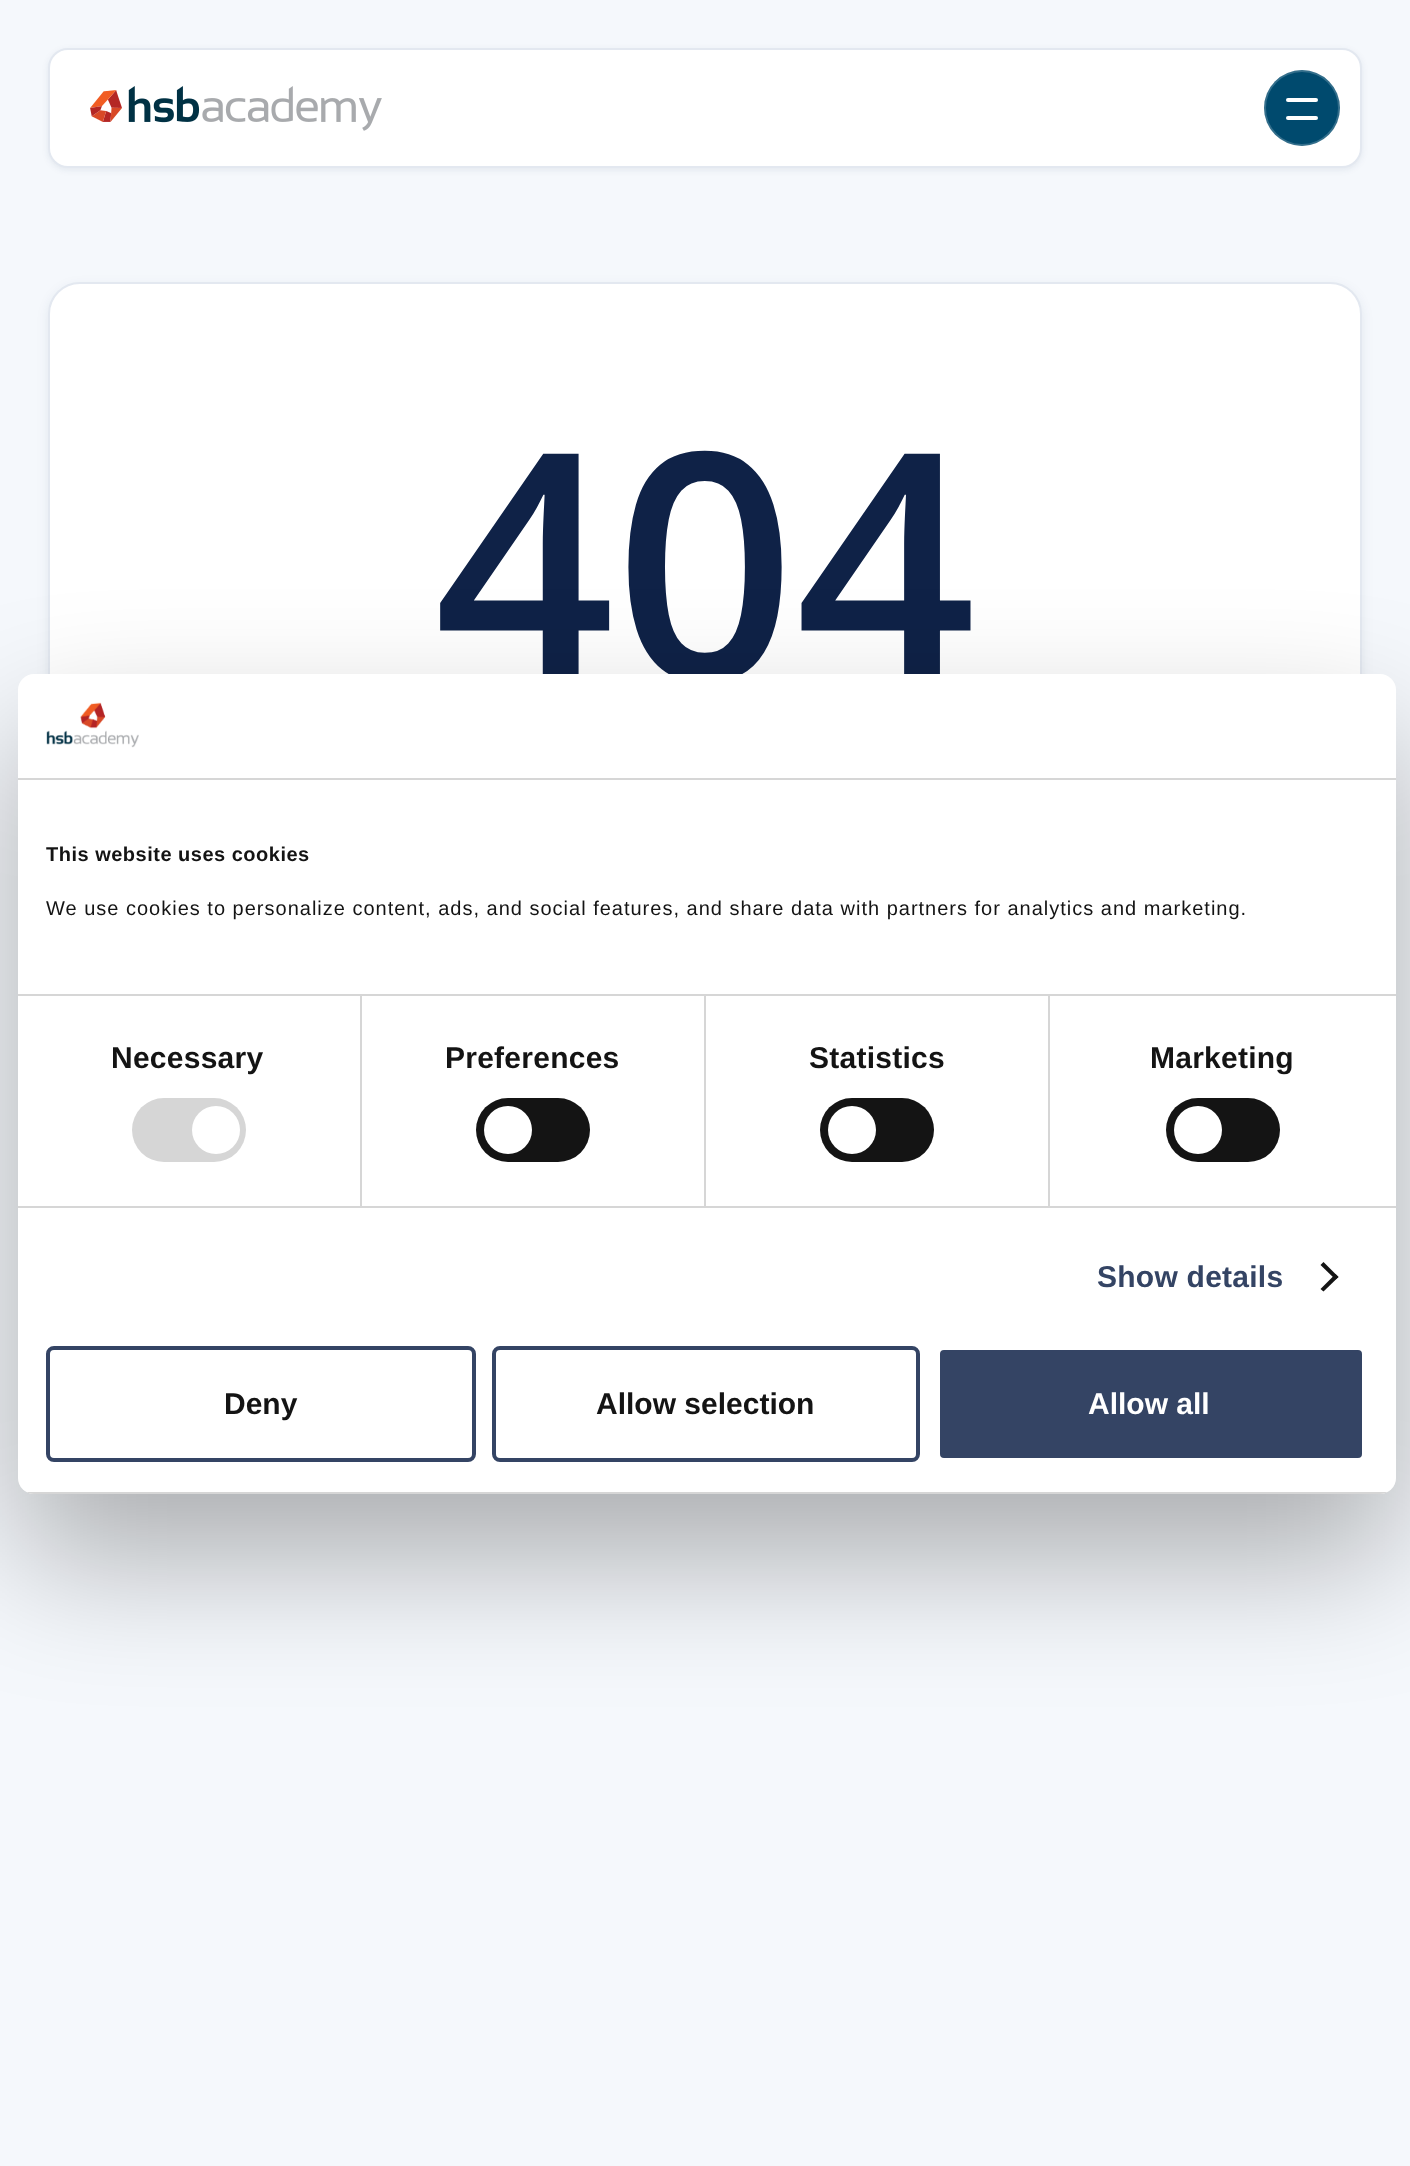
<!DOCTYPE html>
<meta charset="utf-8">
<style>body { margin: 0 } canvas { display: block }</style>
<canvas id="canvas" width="1410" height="2166"></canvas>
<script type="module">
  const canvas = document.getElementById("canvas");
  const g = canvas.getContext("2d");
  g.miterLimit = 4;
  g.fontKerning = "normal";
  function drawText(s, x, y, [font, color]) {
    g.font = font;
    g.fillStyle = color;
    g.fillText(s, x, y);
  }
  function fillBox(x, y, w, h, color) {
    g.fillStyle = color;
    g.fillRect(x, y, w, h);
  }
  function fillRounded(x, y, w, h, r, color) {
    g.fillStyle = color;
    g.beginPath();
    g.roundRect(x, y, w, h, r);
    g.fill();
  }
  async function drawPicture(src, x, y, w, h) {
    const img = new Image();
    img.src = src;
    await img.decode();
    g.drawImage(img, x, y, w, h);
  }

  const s1 = ["600 316px Open Sans", "#0F2247"];
  const s2 = ["bold 20px Liberation Sans", "#141414"];
  const s3 = ["20px Liberation Sans", "#141414"];
  const s4 = ["bold 30px Liberation Sans", "#141414"];
  const s5 = ["bold 30px Liberation Sans", "#344464"];
  const s6 = ["bold 30px Liberation Sans", "#FFFFFF"];

  fillBox(0, 0, 1410, 2166, "#F5F8FC");
  g.fillStyle = "rgba(15, 34, 71, 0.08)";
  g.filter = "blur(3px)";
  g.beginPath();
  g.roundRect(48, 50, 1314, 120, 20);
  g.fill();
  g.filter = "none";
  g.fillStyle = "#FFFFFF";
  g.beginPath();
  g.roundRect(49, 49, 1312, 118, 19);
  g.fill();
  g.strokeStyle = "#E3E8F0";
  g.lineWidth = 2;
  g.stroke();
  await drawPicture("pic1.png", 90, 86, 292, 45);
  g.fillStyle = "#004A6E";
  g.beginPath();
  g.arc(1302, 108, 38, 0, Math.PI * 2);
  g.fill();
  g.beginPath();
  g.arc(1302, 108, 37, 0, Math.PI * 2);
  g.strokeStyle = "rgba(255, 255, 255, 0.2)";
  g.stroke();
  fillRounded(1286, 98, 32, 4, 2, "#FFFFFF");
  fillRounded(1286, 116, 32, 4, 2, "#FFFFFF");
  g.fillStyle = "rgba(15, 34, 71, 0.08)";
  g.filter = "blur(6px)";
  g.beginPath();
  g.roundRect(48, 286, 1314, 856, 32);
  g.fill();
  g.filter = "none";
  g.fillStyle = "#FFFFFF";
  g.beginPath();
  g.roundRect(49, 283, 1312, 854, 31);
  g.fill();
  g.strokeStyle = "#E3E8F0";
  g.stroke();
  drawText("404", 434, 680, s1);
  g.fillStyle = "rgba(0, 0, 0, 0.3)";
  g.filter = "blur(68px)";
  g.beginPath();
  g.roundRect(18, 738, 1378, 820, 16);
  g.fill();
  g.filter = "none";
  fillRounded(18, 674, 1378, 820, 16, "#FFFFFF");
  fillBox(18, 778, 1378, 2, "#D6D6D6");
  await drawPicture("pic2.png", 46, 702, 93, 46);
  fillBox(18, 994, 1378, 2, "#D6D6D6");
  g.letterSpacing = "0.5px";
  drawText("This website uses cookies", 46, 861, s2);
  g.letterSpacing = "1px";
  drawText("We use cookies to personalize content, ads, and social features, and share data with partners for analytics and marketing.", 46, 915, s3);
  fillBox(18, 1206, 1378, 2, "#D6D6D6");
  fillBox(360, 996, 2, 210, "#D6D6D6");
  g.letterSpacing = "0.25px";
  drawText("Necessary", 111, 1068, s4);
  fillRounded(132, 1098, 114, 64, 32, "#D6D6D6");
  g.fillStyle = "#FFFFFF";
  g.beginPath();
  g.arc(216, 1130, 24, 0, Math.PI * 2);
  g.fill();
  fillBox(704, 996, 2, 210, "#D6D6D6");
  drawText("Preferences", 445, 1068, s4);
  fillRounded(476, 1098, 114, 64, 32, "#141414");
  g.fillStyle = "#FFFFFF";
  g.beginPath();
  g.arc(508, 1130, 24, 0, Math.PI * 2);
  g.fill();
  fillBox(1048, 996, 2, 210, "#D6D6D6");
  drawText("Statistics", 809, 1068, s4);
  fillRounded(820, 1098, 114, 64, 32, "#141414");
  g.fillStyle = "#FFFFFF";
  g.beginPath();
  g.arc(852, 1130, 24, 0, Math.PI * 2);
  g.fill();
  drawText("Marketing", 1150, 1068, s4);
  fillRounded(1166, 1098, 114, 64, 32, "#141414");
  g.fillStyle = "#FFFFFF";
  g.beginPath();
  g.arc(1198, 1130, 24, 0, Math.PI * 2);
  g.fill();
  drawText("Show details", 1097, 1287, s5);
  g.fillStyle = "#141414";
  g.beginPath();
  g.moveTo(1323.5, 1262);
  g.lineTo(1338.5, 1277);
  g.lineTo(1335.5, 1279.5);
  g.lineTo(1320.5, 1265);
  g.closePath();
  g.fill();
  g.beginPath();
  g.moveTo(1335.5, 1274);
  g.lineTo(1338.5, 1277);
  g.lineTo(1323.5, 1291.5);
  g.lineTo(1320.5, 1289);
  g.closePath();
  g.fill();
  g.save();
  g.beginPath();
  g.roundRect(18, 674, 1378, 820, 16);
  g.clip();
  fillBox(18, 1492, 1378, 2, "#D6D6D6");
  g.restore();
  g.beginPath();
  g.roundRect(48, 1348, 426, 112, 6);
  g.strokeStyle = "#344464";
  g.lineWidth = 4;
  g.stroke();
  g.letterSpacing = "0px";
  drawText("Deny", 224, 1414, s4);
  g.beginPath();
  g.roundRect(494, 1348, 424, 112, 6);
  g.stroke();
  drawText("Allow selection", 596, 1414, s4);
  g.fillStyle = "#344464";
  g.beginPath();
  g.roundRect(938, 1348, 426, 112, 6);
  g.fill();
  g.strokeStyle = "#FFFFFF";
  g.stroke();
  drawText("Allow all", 1088, 1414, s6);
</script>
